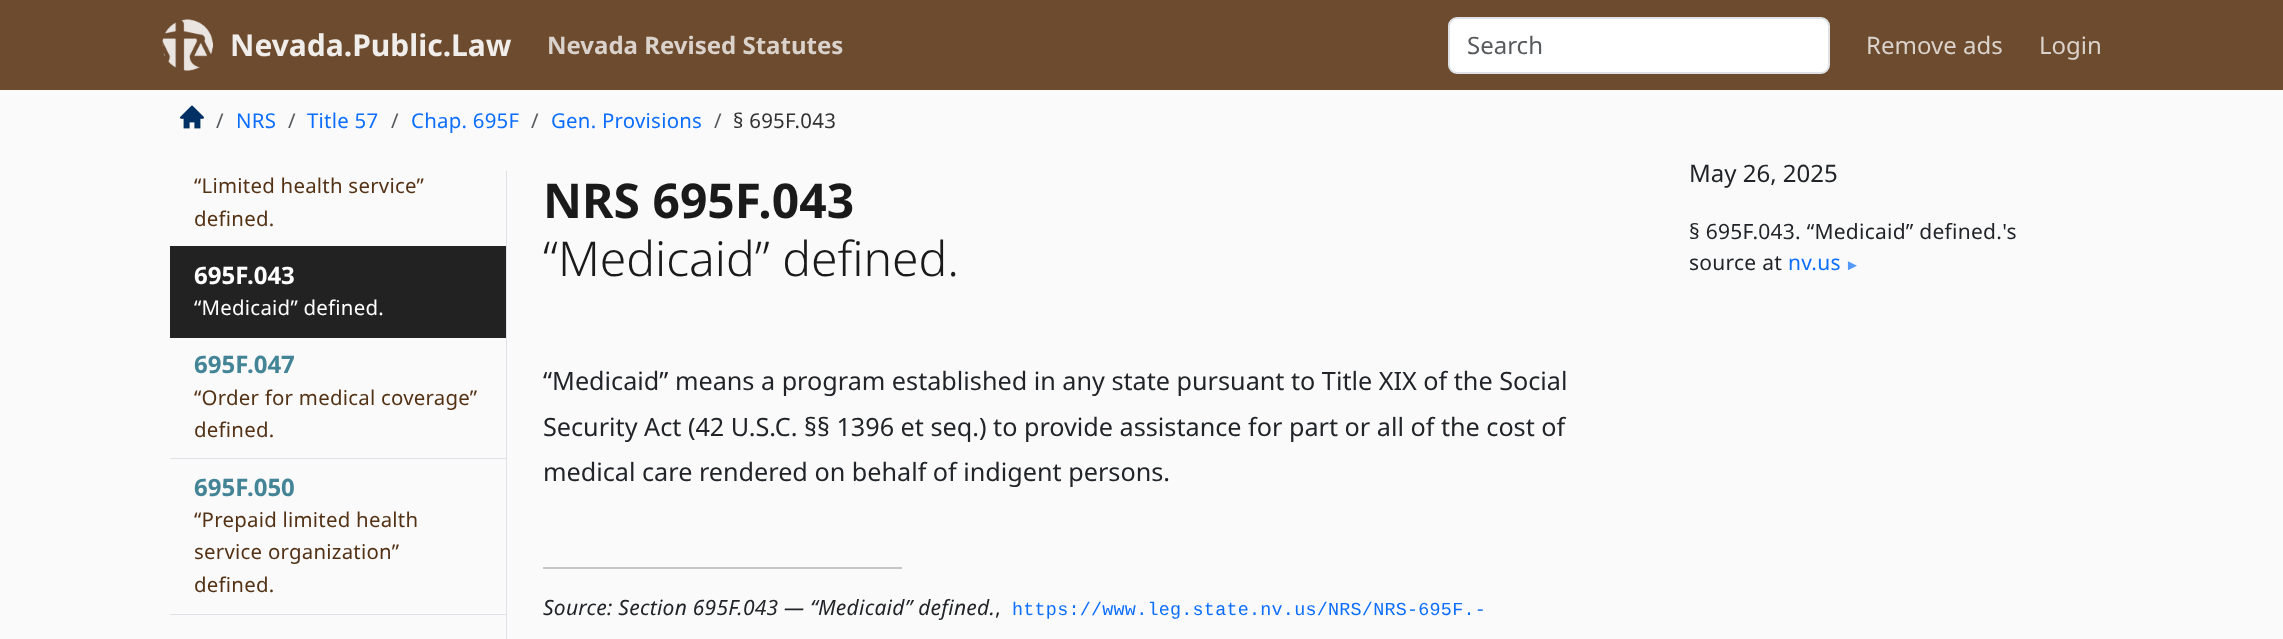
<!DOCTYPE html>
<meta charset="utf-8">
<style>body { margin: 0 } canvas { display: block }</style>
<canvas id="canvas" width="2283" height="639"></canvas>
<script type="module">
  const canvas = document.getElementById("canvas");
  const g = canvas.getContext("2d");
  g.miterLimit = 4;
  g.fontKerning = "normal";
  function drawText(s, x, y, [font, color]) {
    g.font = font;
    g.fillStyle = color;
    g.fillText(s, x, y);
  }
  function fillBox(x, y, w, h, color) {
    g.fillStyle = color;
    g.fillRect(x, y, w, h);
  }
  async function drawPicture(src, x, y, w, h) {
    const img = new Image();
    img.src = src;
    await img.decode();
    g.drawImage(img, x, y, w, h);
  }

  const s1 = ["bold 30px Noto Sans", "#F0EDEA"];
  const s2 = ["bold 24px Noto Sans", "#DAD2CB"];
  const s3 = ["24px Noto Sans", "#575A5D"];
  const s4 = ["24px Noto Sans", "#DAD2CB"];
  const s5 = ["20.4px Noto Sans", "#575A5D"];
  const s6 = ["20.4px Noto Sans", "#0D6EFD"];
  const s7 = ["20.4px Noto Sans", "#323232"];
  const s8 = ["20.4px Noto Sans", "#533215"];
  const s9 = ["bold 24px Noto Sans", "#FFFFFF"];
  const s10 = ["20.4px Noto Sans", "#FFFFFF"];
  const s11 = ["bold 24px Noto Sans", "#438496"];
  const s12 = ["bold 48px Noto Sans", "#1A1A1A"];
  const s13 = ["300 48px Noto Sans", "#1A1A1A"];
  const s14 = ["25.2px Noto Sans", "#212529"];
  const s15 = ["italic 21px Noto Sans", "#212529"];
  const s16 = ["21px Noto Sans", "#212529"];
  const s17 = ["18.4px Liberation Mono", "#0D6EFD"];
  const s18 = ["24px Noto Sans", "#212529"];
  const s19 = ["21px Noto Sans", "#0D6EFD"];
  const s20 = ["15px Liberation Sans", "#5498FC"];

  fillBox(0, 0, 2283, 639, "#FAFAFA");
  fillBox(0, 0, 2283, 90, "#6C4B2F");
  await drawPicture("pic1.png", 162, 19, 51, 52);
  drawText("Nevada.Public.Law", 230, 56, s1);
  drawText("Nevada Revised Statutes", 547, 54, s2);
  g.fillStyle = "#FFFFFF";
  g.beginPath();
  g.roundRect(1449, 18, 380, 55, 8);
  g.fill();
  g.strokeStyle = "#DEE2E6";
  g.lineWidth = 2;
  g.stroke();
  drawText("Search", 1467, 54, s3);
  drawText("Remove ads", 1866, 54, s4);
  drawText("Login", 2039, 54, s4);
  await drawPicture("pic2.png", 180, 105, 24, 24);
  g.letterSpacing = "0.25px";
  drawText("/", 216, 128, s5);
  drawText("NRS", 236, 128, s6);
  drawText("/", 288, 128, s5);
  drawText("Title 57", 307, 128, s6);
  drawText("/", 391, 128, s5);
  drawText("Chap. 695F", 411, 128, s6);
  drawText("/", 531, 128, s5);
  drawText("Gen. Provisions", 551, 128, s6);
  drawText("/", 714, 128, s5);
  drawText("§ 695F.043", 733, 128, s7);
  fillBox(506, 171, 1, 468, "#DEE2E6");
  drawText("“Limited health service”", 194, 193, s8);
  drawText("defined.", 194, 226, s8);
  fillBox(170, 246, 336, 92, "#222222");
  g.letterSpacing = "0px";
  drawText("695F.043", 194, 284, s9);
  g.letterSpacing = "0.25px";
  drawText("“Medicaid” defined.", 194, 315, s10);
  fillBox(170, 458, 336, 1, "#DEE2E6");
  g.letterSpacing = "0px";
  drawText("695F.047", 194, 373, s11);
  g.letterSpacing = "0.25px";
  drawText("“Order for medical coverage”", 194, 405, s8);
  drawText("defined.", 194, 437, s8);
  fillBox(170, 614, 336, 1, "#DEE2E6");
  g.letterSpacing = "0px";
  drawText("695F.050", 194, 496, s11);
  g.letterSpacing = "0.25px";
  drawText("“Prepaid limited health", 194, 527, s8);
  drawText("service organization”", 194, 559, s8);
  drawText("defined.", 194, 592, s8);
  g.letterSpacing = "0px";
  drawText("NRS 695F.043", 543, 218, s12);
  drawText("“Medicaid” defined.", 543, 276, s13);
  drawText("“Medicaid” means a program established in any state pursuant to Title XIX of the Social", 543, 390, s14);
  drawText("Security Act (42 U.S.C. §§ 1396 et seq.) to provide assistance for part or all of the cost of", 543, 436, s14);
  drawText("medical care rendered on behalf of indigent persons.", 543, 481, s14);
  fillBox(543, 567, 359, 2, "#C4C5C6");
  g.letterSpacing = "0.25px";
  drawText("Source: Section 695F.043 — “Medicaid” defined.", 543, 615, s15);
  drawText(",", 995, 615, s16);
  drawText("https://www.leg.state.nv.us/NRS/NRS-695F.-", 1012, 615, s17);
  g.letterSpacing = "0px";
  drawText("May 26, 2025", 1689, 182, s18);
  g.letterSpacing = "0.25px";
  drawText("§ 695F.043. “Medicaid” defined.'s", 1689, 239, s16);
  drawText("source at", 1689, 270, s16);
  drawText("nv.us", 1788, 270, s19);
  drawText("►", 1845, 270, s20);
</script>
